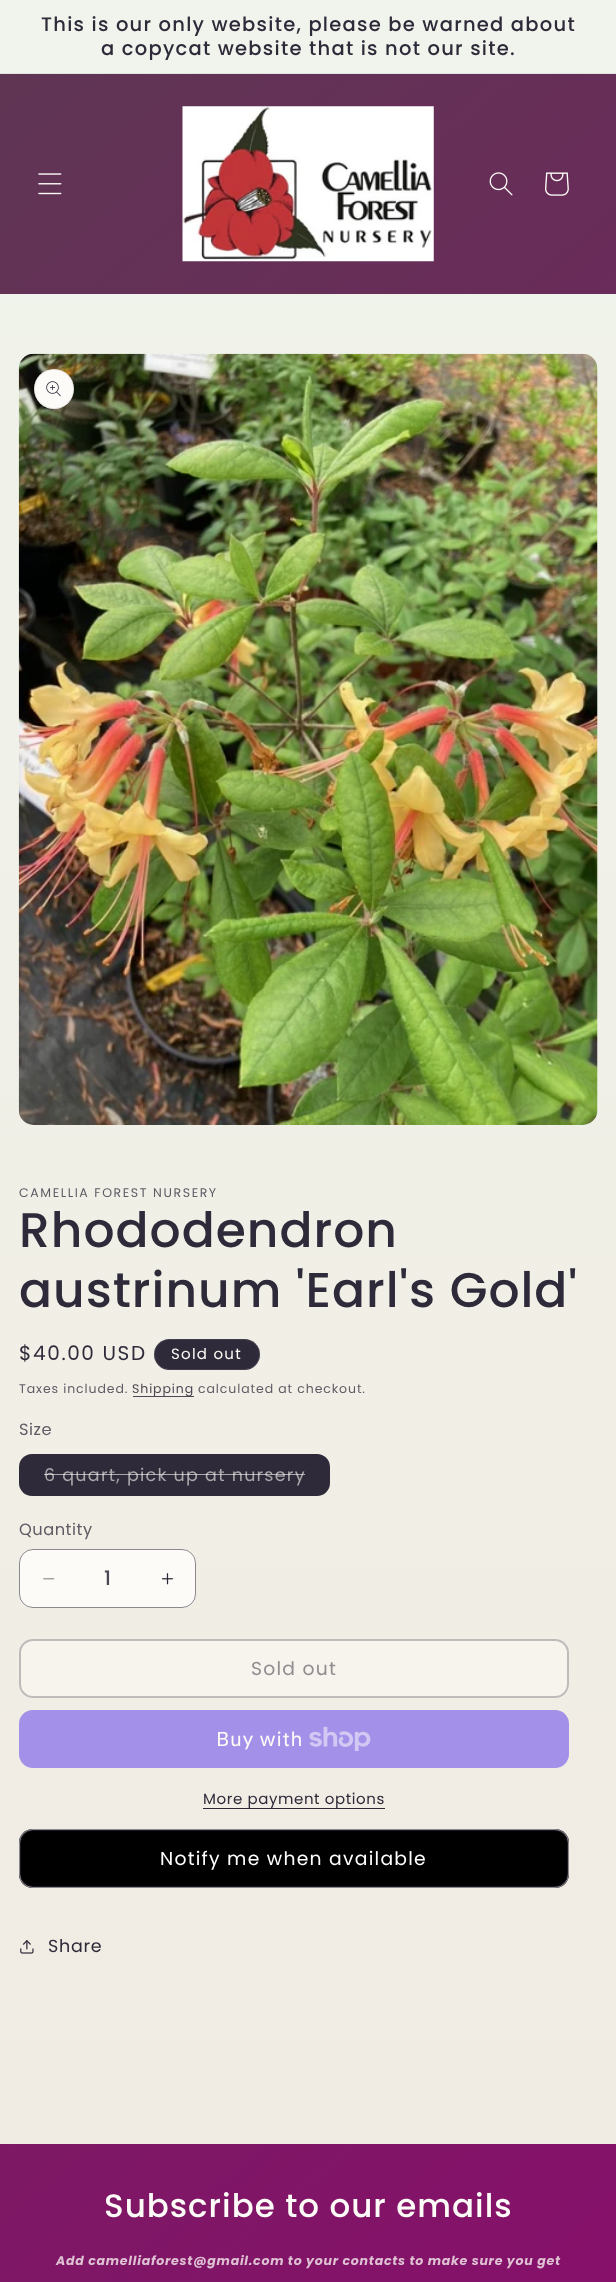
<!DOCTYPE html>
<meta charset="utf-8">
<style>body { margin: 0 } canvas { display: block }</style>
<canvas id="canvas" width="616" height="2282"></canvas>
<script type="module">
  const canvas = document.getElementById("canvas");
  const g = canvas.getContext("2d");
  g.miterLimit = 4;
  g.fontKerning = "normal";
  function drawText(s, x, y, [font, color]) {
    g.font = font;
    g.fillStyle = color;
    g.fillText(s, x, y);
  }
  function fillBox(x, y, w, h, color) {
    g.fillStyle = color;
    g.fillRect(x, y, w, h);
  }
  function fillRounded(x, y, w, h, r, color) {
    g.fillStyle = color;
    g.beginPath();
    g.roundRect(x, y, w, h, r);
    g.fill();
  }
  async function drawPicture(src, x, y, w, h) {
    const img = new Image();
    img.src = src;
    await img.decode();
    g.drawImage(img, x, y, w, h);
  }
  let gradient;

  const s1 = ["500 19.5px Poppins", "#2E2A39"];
  const s2 = ["12.5px Poppins", "#5F5B65"];
  const s3 = ["500 48.75px Poppins", "#2E2A39"];
  const s4 = ["20px Poppins", "#2E2A39"];
  const s5 = ["15px Poppins", "#FDFBF7"];
  const s6 = ["12.5px Poppins", "#4B4752"];
  const s7 = ["16.25px Poppins", "#5F5B65"];
  const s8 = ["17.5px Poppins", "#AAA7AB"];
  const s9 = ["500 20px Poppins", "#4B4752"];
  const s10 = ["18.75px Poppins", "#908C8F"];
  const s11 = ["20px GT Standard", "#FDFBF7"];
  const s12 = ["15px Poppins", "#2E2A39"];
  const s13 = ["18.75px Poppins", "#FFFFFF"];
  const s14 = ["17.5px Poppins", "#2E2A39"];
  const s15 = ["500 32.5px Poppins", "#FDFBF7"];
  const s16 = ["italic bold 12.55px Poppins", "#DEC1D3"];

  fillBox(0, 0, 616, 2282, "#FFFFFF");
  gradient = g.createLinearGradient(308, 0, 308, 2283);
  gradient.addColorStop(0, "#F0F4EC");
  gradient.addColorStop(1, "#F1EBE2");
  g.fillStyle = gradient;
  g.fillRect(0, 0, 616, 2144);
  fillBox(0, 73, 616, 1, "#E0E4DE");
  g.letterSpacing = "1.25px";
  drawText("This is our only website, please be warned about", 41, 31, s1);
  drawText("a copycat website that is not our site.", 101, 55, s1);
  gradient = g.createLinearGradient(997, 1963, -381, 320);
  gradient.addColorStop(0, "#86106A");
  gradient.addColorStop(1, "#5E3653");
  g.fillStyle = gradient;
  g.fillRect(0, 74, 616, 220);
  await drawPicture("pic1.png", 38, 173, 24, 22);
  await drawPicture("pic2.png", 182, 106, 252, 156);
  await drawPicture("pic3.png", 489, 172, 24, 24);
  await drawPicture("pic4.png", 545, 172, 24, 24);
  await drawPicture("pic5.png", 18, 353, 580, 772);
  g.fillStyle = "#FDFBF7";
  g.beginPath();
  g.arc(54, 389, 20, 0, Math.PI * 2);
  g.fill();
  g.beginPath();
  g.arc(54, 389, 19.5, 0, Math.PI * 2);
  g.strokeStyle = "rgba(46, 42, 57, 0.1)";
  g.stroke();
  await drawPicture("pic6.png", 46, 381, 15, 16);
  g.letterSpacing = "1.6px";
  drawText("CAMELLIA FOREST NURSERY", 19, 1197, s2);
  g.letterSpacing = "1px";
  drawText("Rhododendron", 19, 1247, s3);
  drawText("austrinum 'Earl's Gold'", 19, 1307, s3);
  g.letterSpacing = "1.6px";
  drawText("$40.00 USD", 19, 1360, s4);
  fillRounded(154, 1339, 106, 31, 15.5, "#2E2A39");
  g.beginPath();
  g.roundRect(154.5, 1339.5, 105, 30, 15);
  g.strokeStyle = "rgba(253, 251, 247, 0.1)";
  g.stroke();
  g.letterSpacing = "1.25px";
  drawText("Sold out", 171, 1359, s5);
  g.letterSpacing = "0.9px";
  drawText("Taxes included.", 19, 1393, s2);
  fillBox(133, 1396, 61, 1, "#4B4753");
  drawText("Shipping", 132, 1393, s6);
  drawText("calculated at checkout.", 198, 1393, s2);
  g.letterSpacing = "0.5px";
  drawText("Size", 19, 1435, s7);
  fillRounded(19, 1454, 311, 42, 13, "#2E2A39");
  g.letterSpacing = "1.25px";
  drawText("6 quart, pick up at nursery", 44, 1481, s8);
  fillBox(44, 1474, 261, 1, "rgba(253, 251, 247, 0.6)");
  g.letterSpacing = "0.5px";
  drawText("Quantity", 19, 1535, s7);
  fillRounded(19, 1549, 177, 59, 14, "#FDFBF7");
  await drawPicture("pic7.png", 43, 1578, 12, 2);
  await drawPicture("pic8.png", 161, 1573, 13, 12);
  g.beginPath();
  g.roundRect(19.5, 1549.5, 176, 58, 13.5);
  g.strokeStyle = "rgba(46, 42, 57, 0.55)";
  g.stroke();
  g.letterSpacing = "0px";
  drawText("1", 104, 1585, s9);
  fillRounded(19, 1639, 550, 59, 14, "#F7F4EE");
  g.beginPath();
  g.roundRect(20, 1640, 548, 57, 13);
  g.strokeStyle = "#BEBBBA";
  g.lineWidth = 2;
  g.stroke();
  g.letterSpacing = "1.25px";
  drawText("Sold out", 251, 1675, s10);
  fillRounded(19, 1710, 550, 58, 14, "#A390E8");
  g.letterSpacing = "0.75px";
  drawText("Buy with", 216, 1746, s11);
  await drawPicture("pic9.png", 309, 1726, 62, 25);
  g.letterSpacing = "0.6px";
  drawText("More payment options", 203, 1804, s12);
  fillBox(203, 1808, 182, 1, "#2E2A39");
  fillRounded(19, 1829, 550, 59, 14, "#000000");
  g.beginPath();
  g.roundRect(19.5, 1829.5, 549, 58, 13.5);
  g.strokeStyle = "#FDFBF7";
  g.lineWidth = 1;
  g.stroke();
  g.beginPath();
  g.roundRect(20, 1830, 548, 57, 13);
  g.strokeStyle = "rgba(46, 42, 57, 0.55)";
  g.lineWidth = 2;
  g.stroke();
  g.letterSpacing = "1.25px";
  drawText("Notify me when available", 160, 1865, s13);
  await drawPicture("pic10.png", 20, 1940, 14, 14);
  g.letterSpacing = "0.75px";
  drawText("Share", 48, 1952, s14);
  gradient = g.createLinearGradient(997, 1963, -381, 320);
  gradient.addColorStop(0, "#86106A");
  gradient.addColorStop(1, "#5E3653");
  g.fillStyle = gradient;
  g.fillRect(0, 2144, 616, 138);
  g.letterSpacing = "1px";
  drawText("Subscribe to our emails", 104, 2217, s15);
  g.letterSpacing = "0.75px";
  drawText("Add camelliaforest@gmail.com to your contacts to make sure you get", 56, 2265, s16);
</script>
